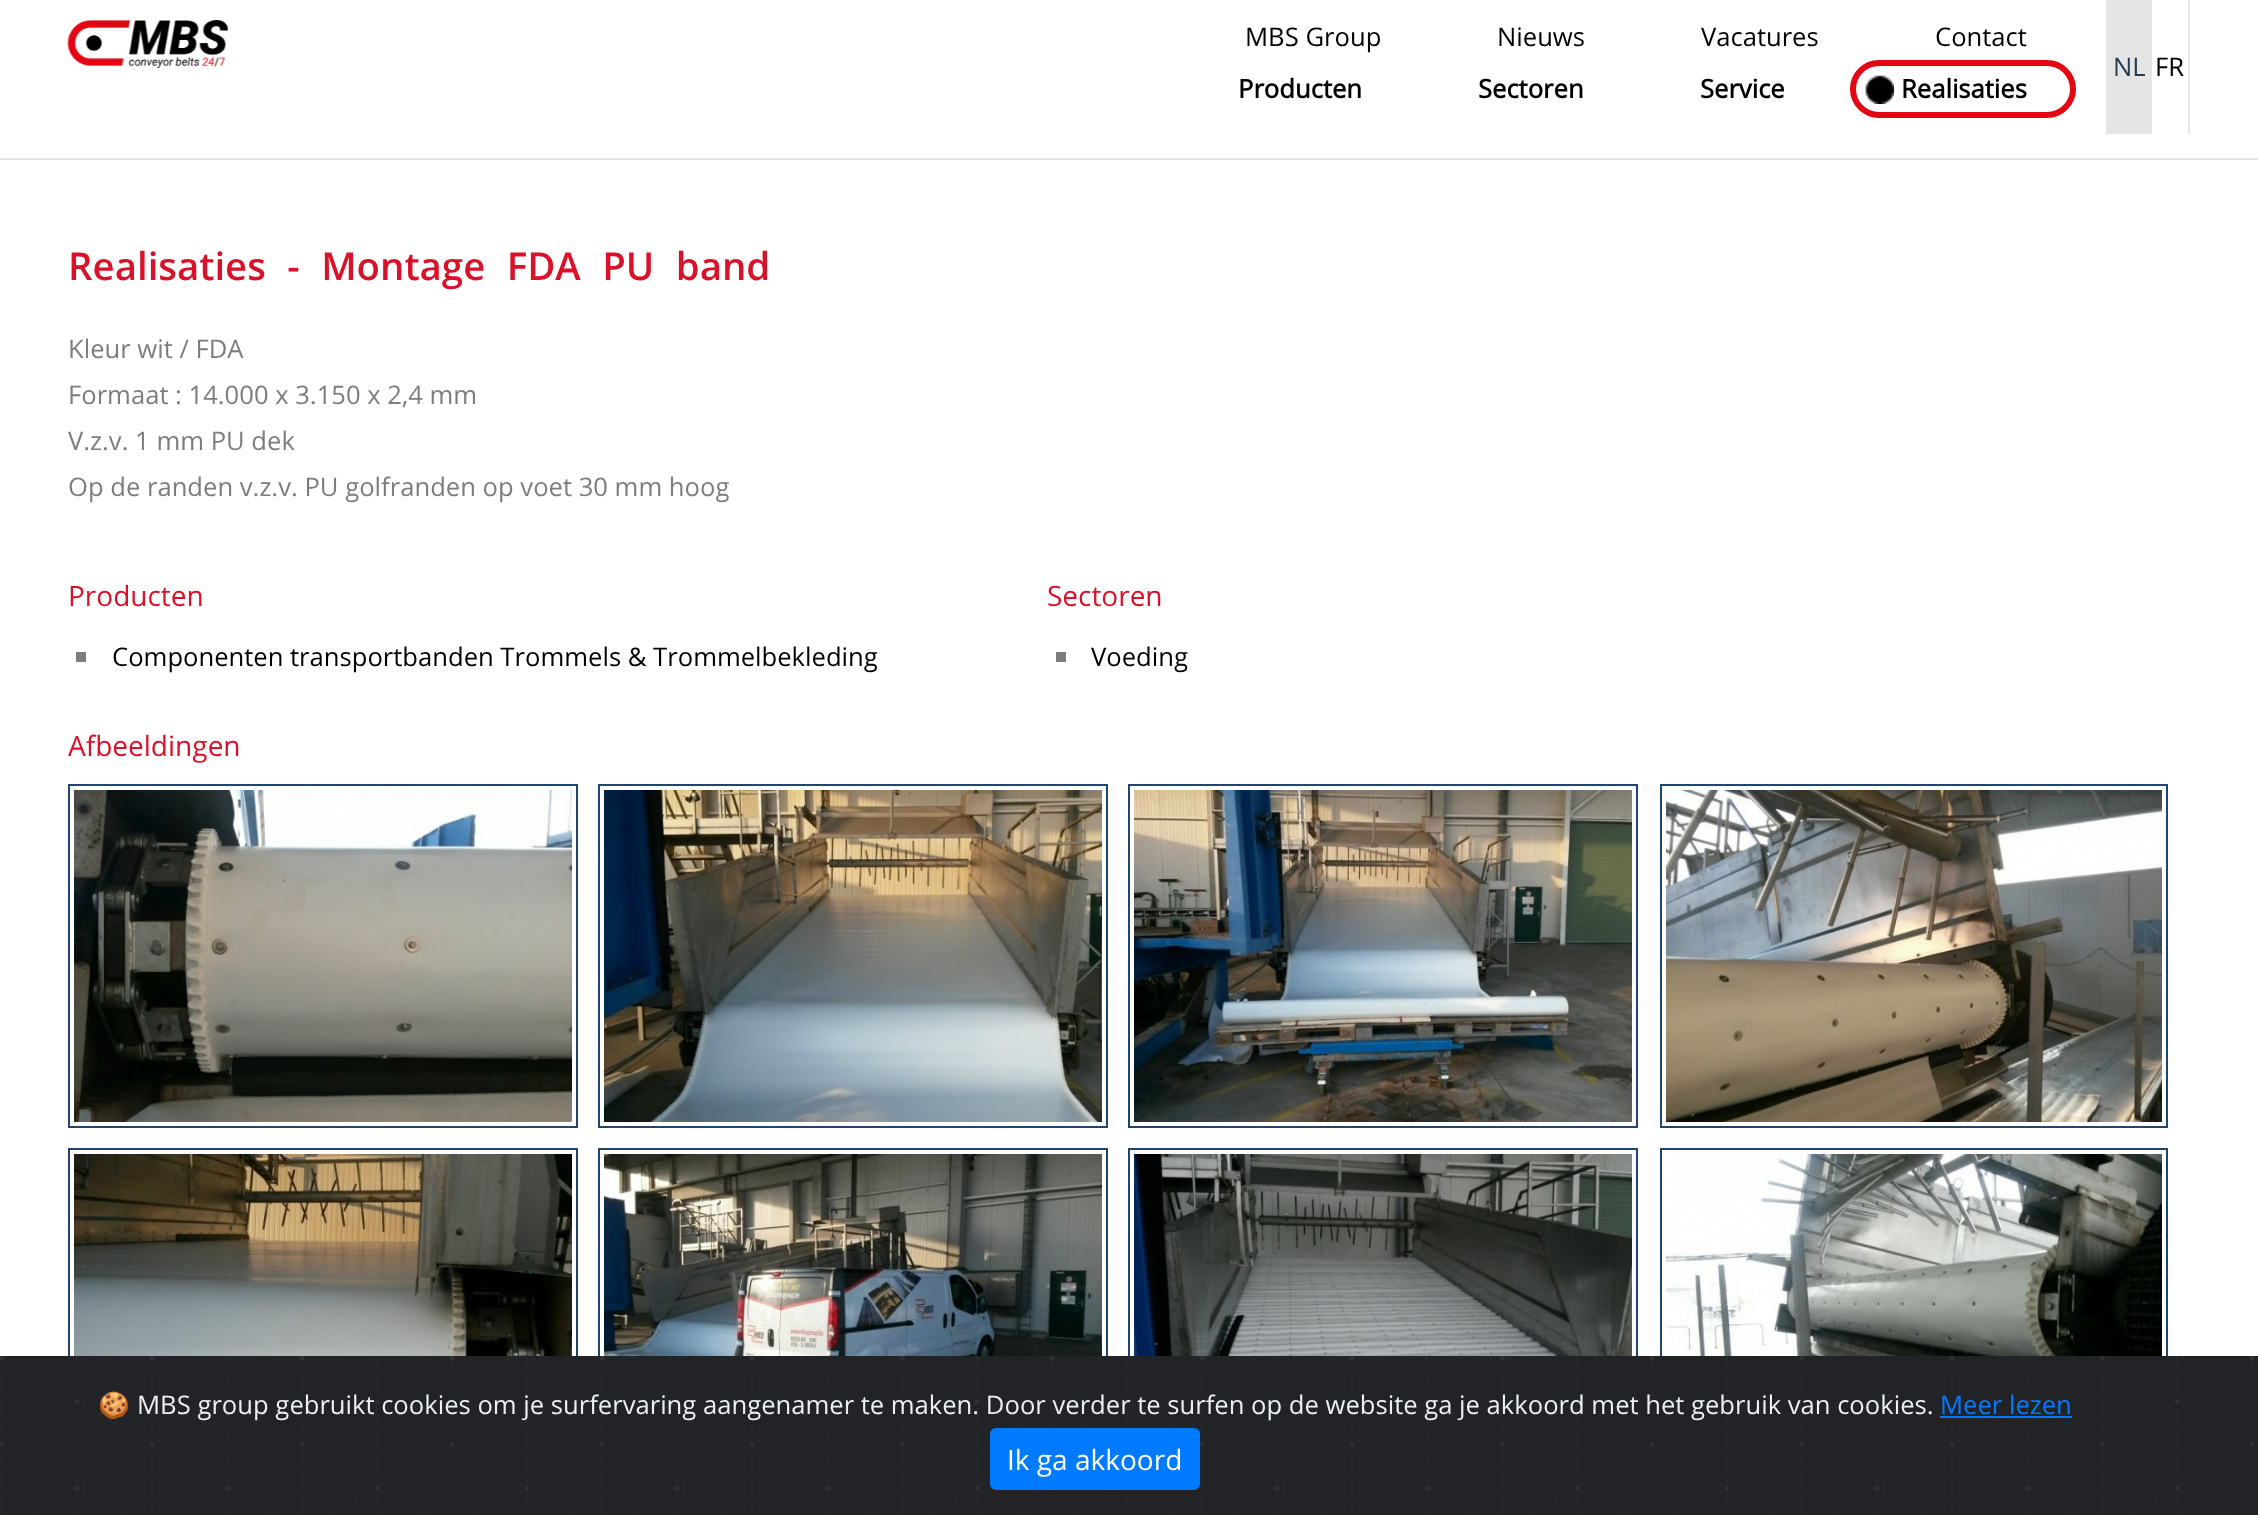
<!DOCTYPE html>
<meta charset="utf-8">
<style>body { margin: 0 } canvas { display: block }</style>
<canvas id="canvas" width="2258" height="1515"></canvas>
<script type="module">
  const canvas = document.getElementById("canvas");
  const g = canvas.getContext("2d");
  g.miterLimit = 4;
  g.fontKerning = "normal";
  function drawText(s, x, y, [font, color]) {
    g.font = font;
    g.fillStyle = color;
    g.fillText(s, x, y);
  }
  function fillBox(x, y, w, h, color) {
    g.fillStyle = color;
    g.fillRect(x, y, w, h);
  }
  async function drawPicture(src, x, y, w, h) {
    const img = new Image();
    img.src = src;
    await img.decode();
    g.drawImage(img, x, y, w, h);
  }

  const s1 = ["25.6px Open Sans", "#000000"];
  const s2 = ["bold 25.6px Open Sans", "#000000"];
  const s3 = ["25.6px Open Sans", "#253C51"];
  const s4 = ["600 38.4px Open Sans", "#D91129"];
  const s5 = ["25.6px Open Sans", "#7D7D7D"];
  const s6 = ["28px Open Sans", "#D91129"];
  const s7 = ["25.6px Noto Color Emoji", "#ECF0F1"];
  const s8 = ["25.6px Open Sans", "#ECF0F1"];
  const s9 = ["25.6px Open Sans", "#007BFF"];
  const s10 = ["28px Open Sans", "#FFFFFF"];

  fillBox(0, 0, 2258, 1515, "#FFFFFF");
  fillBox(0, 158, 2258, 2, "#E5E5E5");
  await drawPicture("pic1.png", 67, 20, 161, 48);
  drawText("MBS Group", 1245, 46, s1);
  drawText("Nieuws", 1497, 46, s1);
  drawText("Vacatures", 1701, 46, s1);
  drawText("Contact", 1935, 46, s1);
  drawText("Producten", 1238, 98, s2);
  drawText("Sectoren", 1478, 98, s2);
  drawText("Service", 1700, 98, s2);
  g.beginPath();
  g.roundRect(1853, 63, 220, 52, 26);
  g.strokeStyle = "#E30613";
  g.lineWidth = 6;
  g.stroke();
  await drawPicture("pic2.png", 1865, 75, 29, 29);
  drawText("Realisaties", 1901, 98, s2);
  fillBox(2106, 0, 46, 134, "#E5E5E5");
  drawText("NL", 2113, 76, s3);
  fillBox(2188, 0, 2, 134, "#E5E5E5");
  drawText("FR", 2155, 76, s1);
  g.wordSpacing = "11.5px";
  drawText("Realisaties - Montage FDA PU band", 68, 280, s4);
  g.wordSpacing = "0px";
  drawText("Kleur wit / FDA", 68, 358, s5);
  drawText("Formaat : 14.000 x 3.150 x 2,4 mm", 68, 404, s5);
  drawText("V.z.v. 1 mm PU dek", 68, 450, s5);
  drawText("Op de randen v.z.v. PU golfranden op voet 30 mm hoog", 68, 496, s5);
  drawText("Producten", 68, 606, s6);
  fillBox(76, 652, 10, 10, "#7D7D7D");
  drawText("Componenten transportbanden Trommels & Trommelbekleding", 112, 666, s1);
  drawText("Sectoren", 1047, 606, s6);
  fillBox(1056, 652, 10, 10, "#7D7D7D");
  drawText("Voeding", 1091, 666, s1);
  drawText("Afbeeldingen", 68, 756, s6);
  g.strokeStyle = "#20456F";
  g.lineWidth = 2;
  g.strokeRect(69, 785, 508, 342);
  await drawPicture("pic3.png", 74, 790, 498, 332);
  g.strokeRect(599, 785, 508, 342);
  await drawPicture("pic4.png", 604, 790, 498, 332);
  g.strokeRect(1129, 785, 508, 342);
  await drawPicture("pic5.png", 1134, 790, 498, 332);
  g.strokeRect(1661, 785, 506, 342);
  await drawPicture("pic6.png", 1666, 790, 496, 332);
  g.strokeRect(69, 1149, 508, 342);
  await drawPicture("pic7.png", 74, 1154, 498, 202);
  g.strokeRect(599, 1149, 508, 342);
  await drawPicture("pic8.png", 604, 1154, 498, 202);
  g.strokeRect(1129, 1149, 508, 342);
  await drawPicture("pic9.png", 1134, 1154, 498, 202);
  g.strokeRect(1661, 1149, 506, 342);
  await drawPicture("pic10.png", 1666, 1154, 496, 202);
  fillBox(2254, 1356, 4, 159, "#212327");
  await drawPicture("pic11.png", 0, 1356, 2254, 159);
  drawText("🍪", 98, 1414, s7);
  drawText("MBS group gebruikt cookies om je surfervaring aangenamer te maken. Door verder te surfen op de website ga je akkoord met het gebruik van cookies.", 137, 1414, s8);
  drawText("Meer lezen", 1940, 1414, s9);
  fillBox(1940, 1416, 132, 2, "#007BFF");
  g.beginPath();
  g.roundRect(991, 1429, 208, 60, 5);
  g.fill();
  g.strokeStyle = "#007BFF";
  g.stroke();
  drawText("Ik ga akkoord", 1007, 1470, s10);
</script>
